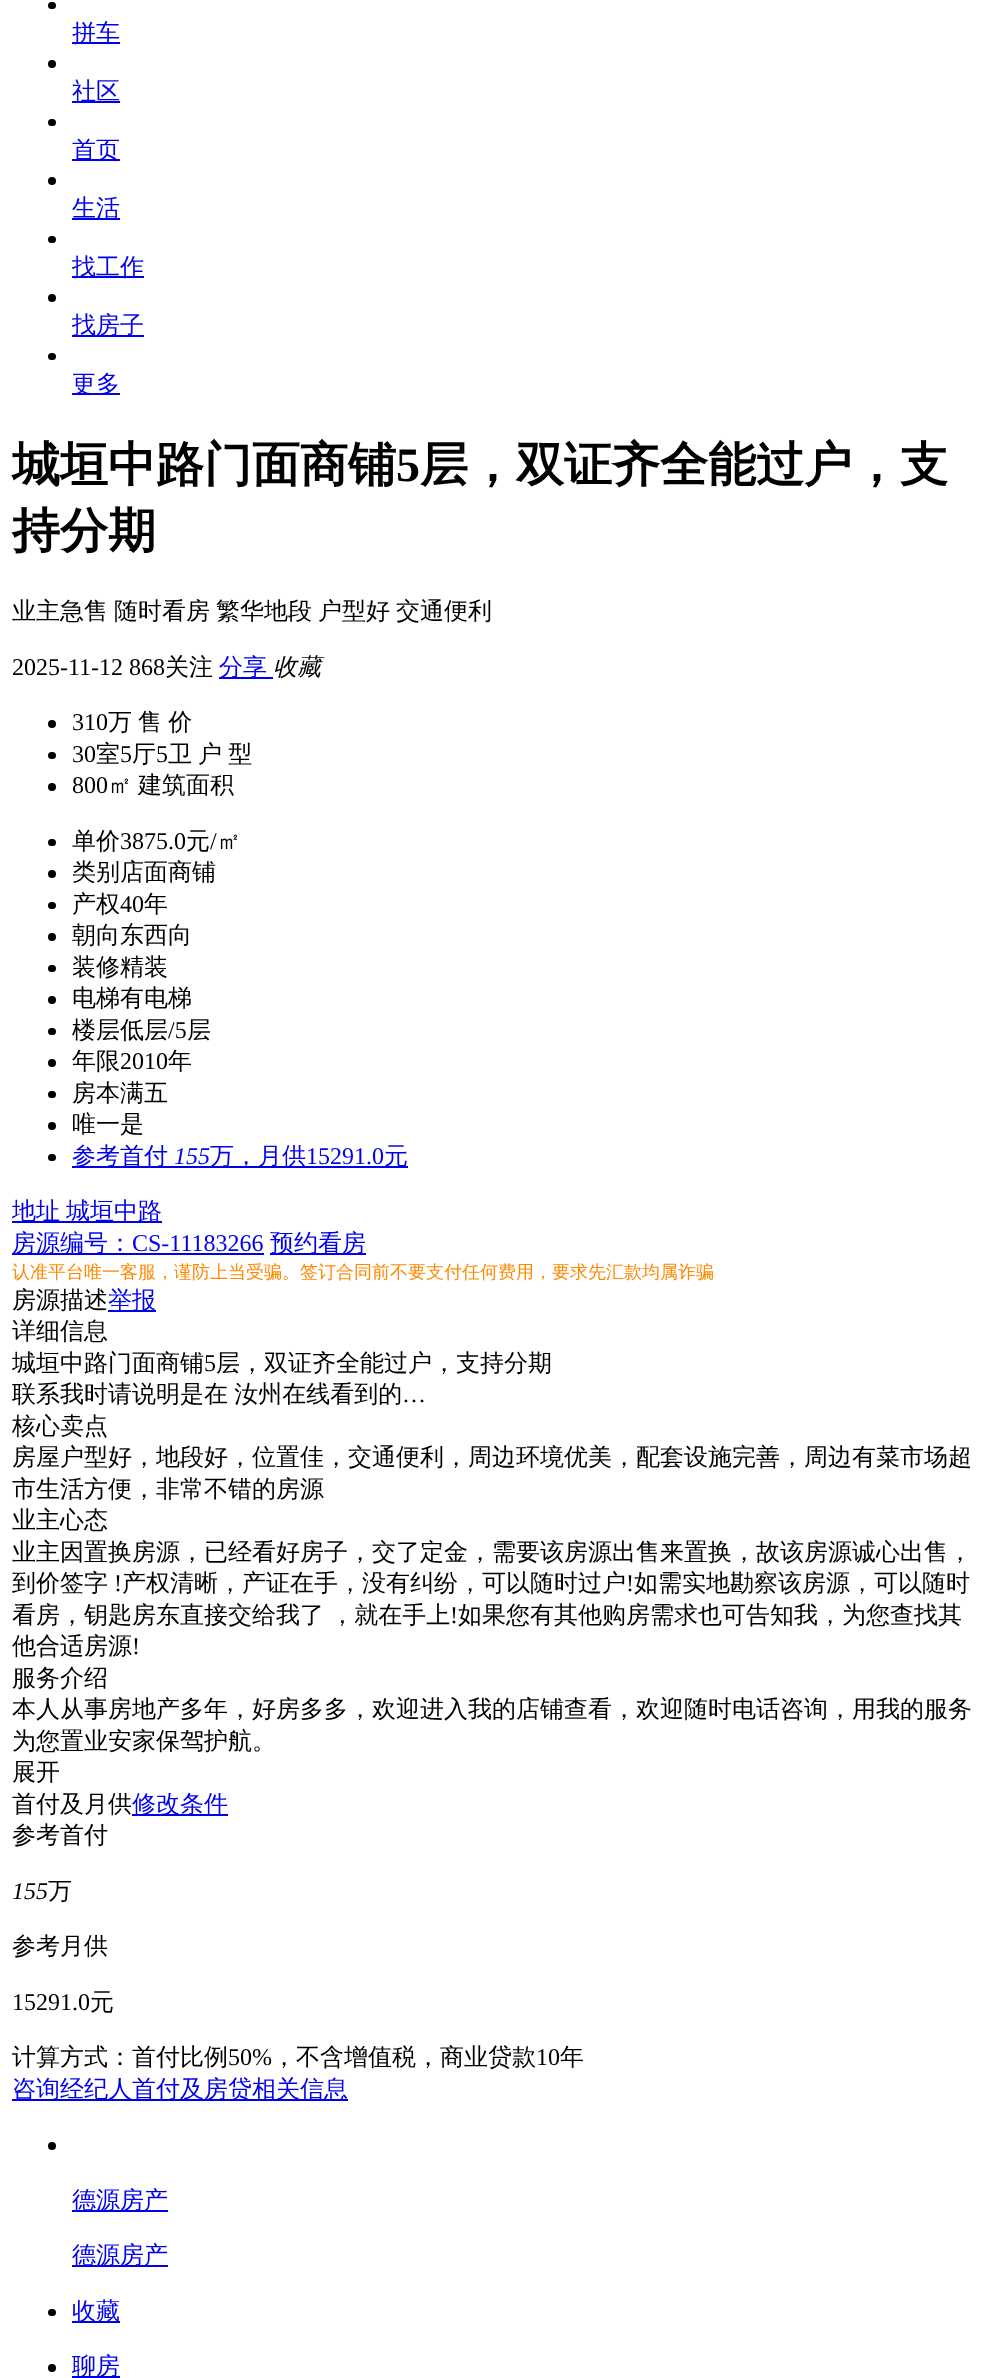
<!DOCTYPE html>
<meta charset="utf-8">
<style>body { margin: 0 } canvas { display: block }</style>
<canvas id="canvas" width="989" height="2378"></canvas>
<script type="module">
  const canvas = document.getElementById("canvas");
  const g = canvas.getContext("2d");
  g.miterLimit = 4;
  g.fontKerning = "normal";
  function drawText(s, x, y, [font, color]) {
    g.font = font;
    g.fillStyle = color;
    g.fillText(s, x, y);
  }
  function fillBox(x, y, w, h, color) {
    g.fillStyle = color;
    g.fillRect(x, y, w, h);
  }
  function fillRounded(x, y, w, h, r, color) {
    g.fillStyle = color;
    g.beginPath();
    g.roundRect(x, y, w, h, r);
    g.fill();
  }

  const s1 = ["500 24px WenQuanYi Zen Hei", "#0000EE"];
  const s2 = ["bold 48px WenQuanYi Zen Hei", "#000000"];
  const s3 = ["bold 48px Liberation Serif", "#000000"];
  const s4 = ["500 24px WenQuanYi Zen Hei", "#000000"];
  const s5 = ["24px Liberation Serif", "#000000"];
  const s6 = ["italic 500 24px WenQuanYi Zen Hei", "#000000"];
  const s7 = ["italic 24px Liberation Serif", "#0000EE"];
  const s8 = ["24px Liberation Serif", "#0000EE"];
  const s9 = ["500 18px WenQuanYi Zen Hei", "#FF8800"];
  const s10 = ["italic 24px Liberation Serif", "#000000"];

  fillBox(0, 0, 989, 2378, "#FFFFFF");
  fillRounded(48, 2, 8, 7, 3.5, "#000000");
  fillBox(72, 42, 48, 2, "#0000EE");
  drawText("拼车", 72, 41, s1);
  g.fillStyle = "#000000";
  g.beginPath();
  g.arc(52, 64, 4, 0, Math.PI * 2);
  g.fill();
  fillBox(72, 101, 48, 2, "#0000EE");
  drawText("社区", 72, 99, s1);
  fillRounded(48, 119, 8, 7, 3.5, "#000000");
  fillBox(72, 159, 48, 2, "#0000EE");
  drawText("首页", 72, 158, s1);
  g.fillStyle = "#000000";
  g.beginPath();
  g.arc(52, 181, 4, 0, Math.PI * 2);
  g.fill();
  fillBox(72, 218, 48, 2, "#0000EE");
  drawText("生活", 72, 216, s1);
  fillRounded(48, 236, 8, 7, 3.5, "#000000");
  fillBox(72, 276, 72, 2, "#0000EE");
  drawText("找工作", 72, 275, s1);
  g.fillStyle = "#000000";
  g.beginPath();
  g.arc(52, 298, 4, 0, Math.PI * 2);
  g.fill();
  fillBox(72, 335, 72, 2, "#0000EE");
  drawText("找房子", 72, 333, s1);
  fillRounded(48, 353, 8, 7, 3.5, "#000000");
  fillBox(72, 393, 48, 2, "#0000EE");
  drawText("更多", 72, 392, s1);
  drawText("城垣中路门面商铺", 12, 481, s2);
  drawText("5", 396, 481, s3);
  drawText("层，双证齐全能过户，支", 420, 481, s2);
  drawText("持分期", 12, 547, s2);
  drawText("业主急售", 12, 619, s4);
  drawText("随时看房", 114, 619, s4);
  drawText("繁华地段", 216, 619, s4);
  drawText("户型好", 318, 619, s4);
  drawText("交通便利", 396, 619, s4);
  drawText("2025-11-12 868", 12, 675, s5);
  drawText("关注", 165, 675, s4);
  fillBox(219, 677, 54, 2, "#0000EE");
  drawText("分享", 219, 675, s1);
  drawText("收藏", 273, 675, s6);
  g.beginPath();
  g.arc(52, 724, 4, 0, Math.PI * 2);
  g.fill();
  drawText("310", 72, 730, s5);
  drawText("万", 108, 730, s4);
  g.wordSpacing = "-1px";
  drawText("售 价", 138, 730, s4);
  fillRounded(48, 752, 8, 7, 3.5, "#000000");
  g.wordSpacing = "0px";
  drawText("30", 72, 762, s5);
  drawText("室", 96, 762, s4);
  drawText("5", 120, 762, s5);
  drawText("厅", 132, 762, s4);
  drawText("5", 156, 762, s5);
  drawText("卫", 168, 762, s4);
  g.wordSpacing = "-1px";
  drawText("户 型", 198, 762, s4);
  g.beginPath();
  g.arc(52, 787, 4, 0, Math.PI * 2);
  g.fill();
  g.wordSpacing = "0px";
  drawText("800", 72, 793, s5);
  drawText("㎡", 108, 793, s4);
  drawText("建筑面积", 138, 793, s4);
  fillRounded(48, 839, 8, 7, 3.5, "#000000");
  drawText("单价", 72, 849, s4);
  drawText("3875.0", 120, 849, s5);
  drawText("元", 186, 849, s4);
  drawText("/", 210, 849, s5);
  drawText("㎡", 217, 849, s4);
  g.beginPath();
  g.arc(52, 874, 4, 0, Math.PI * 2);
  g.fill();
  drawText("类别店面商铺", 72, 880, s4);
  fillRounded(48, 902, 8, 7, 3.5, "#000000");
  drawText("产权", 72, 912, s4);
  drawText("40", 120, 912, s5);
  drawText("年", 144, 912, s4);
  g.beginPath();
  g.arc(52, 937, 4, 0, Math.PI * 2);
  g.fill();
  drawText("朝向东西向", 72, 943, s4);
  fillRounded(48, 965, 8, 7, 3.5, "#000000");
  drawText("装修精装", 72, 975, s4);
  g.beginPath();
  g.arc(52, 1000, 4, 0, Math.PI * 2);
  g.fill();
  drawText("电梯有电梯", 72, 1006, s4);
  fillRounded(48, 1028, 8, 7, 3.5, "#000000");
  drawText("楼层低层", 72, 1038, s4);
  drawText("/5", 168, 1038, s5);
  drawText("层", 187, 1038, s4);
  g.beginPath();
  g.arc(52, 1063, 4, 0, Math.PI * 2);
  g.fill();
  drawText("年限", 72, 1069, s4);
  drawText("2010", 120, 1069, s5);
  drawText("年", 168, 1069, s4);
  fillRounded(48, 1091, 8, 7, 3.5, "#000000");
  drawText("房本满五", 72, 1101, s4);
  g.beginPath();
  g.arc(52, 1126, 4, 0, Math.PI * 2);
  g.fill();
  drawText("唯一是", 72, 1132, s4);
  fillRounded(48, 1154, 8, 7, 3.5, "#000000");
  fillBox(72, 1166, 336, 2, "#0000EE");
  drawText("参考首付", 72, 1164, s1);
  drawText("155", 174, 1164, s7);
  drawText("万，月供", 210, 1164, s1);
  drawText("15291.0", 306, 1164, s8);
  drawText("元", 384, 1164, s1);
  fillBox(12, 1221, 150, 2, "#0000EE");
  drawText("地址", 12, 1219, s1);
  drawText("城垣中路", 66, 1219, s1);
  fillBox(12, 1253, 252, 2, "#0000EE");
  drawText("房源编号：", 12, 1251, s1);
  drawText("CS-11183266", 132, 1251, s8);
  fillBox(270, 1253, 96, 2, "#0000EE");
  drawText("预约看房", 270, 1251, s1);
  drawText("认准平台唯一客服，谨防上当受骗。签订合同前不要支付任何费用，要求先汇款均属诈骗", 12, 1278, s9);
  drawText("房源描述", 12, 1308, s4);
  fillBox(108, 1310, 48, 2, "#0000EE");
  drawText("举报", 108, 1308, s1);
  drawText("详细信息", 12, 1339, s4);
  drawText("城垣中路门面商铺", 12, 1371, s4);
  drawText("5", 204, 1371, s5);
  drawText("层，双证齐全能过户，支持分期", 216, 1371, s4);
  g.wordSpacing = "-1px";
  drawText("联系我时请说明是在 汝州在线看到的", 12, 1402, s4);
  g.wordSpacing = "0px";
  drawText("…", 402, 1402, s5);
  drawText("核心卖点", 12, 1434, s4);
  drawText("房屋户型好，地段好，位置佳，交通便利，周边环境优美，配套设施完善，周边有菜市场超", 12, 1465, s4);
  drawText("市生活方便，非常不错的房源", 12, 1497, s4);
  drawText("业主心态", 12, 1528, s4);
  drawText("业主因置换房源，已经看好房子，交了定金，需要该房源出售来置换，故该房源诚心出售，", 12, 1560, s4);
  drawText("到价签字", 12, 1591, s4);
  drawText("!", 114, 1591, s5);
  drawText("产权清晰，产证在手，没有纠纷，可以随时过户", 122, 1591, s4);
  drawText("!", 626, 1591, s5);
  drawText("如需实地勘察该房源，可以随时", 634, 1591, s4);
  g.wordSpacing = "-1px";
  drawText("看房，钥匙房东直接交给我了 ，就在手上", 12, 1623, s4);
  g.wordSpacing = "0px";
  drawText("!", 450, 1623, s5);
  drawText("如果您有其他购房需求也可告知我，为您查找其", 458, 1623, s4);
  drawText("他合适房源", 12, 1654, s4);
  drawText("!", 132, 1654, s5);
  drawText("服务介绍", 12, 1686, s4);
  drawText("本人从事房地产多年，好房多多，欢迎进入我的店铺查看，欢迎随时电话咨询，用我的服务", 12, 1717, s4);
  drawText("为您置业安家保驾护航。", 12, 1749, s4);
  drawText("展开", 12, 1780, s4);
  drawText("首付及月供", 12, 1812, s4);
  fillBox(132, 1814, 96, 2, "#0000EE");
  drawText("修改条件", 132, 1812, s1);
  drawText("参考首付", 12, 1843, s4);
  drawText("155", 12, 1899, s10);
  drawText("万", 48, 1899, s4);
  drawText("参考月供", 12, 1954, s4);
  drawText("15291.0", 12, 2010, s5);
  drawText("元", 90, 2010, s4);
  drawText("计算方式：首付比例", 12, 2065, s4);
  drawText("50%", 228, 2065, s5);
  drawText("，不含增值税，商业贷款", 272, 2065, s4);
  drawText("10", 536, 2065, s5);
  drawText("年", 560, 2065, s4);
  fillBox(12, 2099, 336, 2, "#0000EE");
  drawText("咨询经纪人首付及房贷相关信息", 12, 2097, s1);
  g.fillStyle = "#000000";
  g.beginPath();
  g.arc(52, 2146, 4, 0, Math.PI * 2);
  g.fill();
  fillBox(72, 2210, 96, 2, "#0000EE");
  drawText("德源房产", 72, 2208, s1);
  fillBox(72, 2265, 96, 2, "#0000EE");
  drawText("德源房产", 72, 2263, s1);
  fillRounded(48, 2309, 8, 7, 3.5, "#000000");
  fillBox(72, 2321, 48, 2, "#0000EE");
  drawText("收藏", 72, 2319, s1);
  g.fillStyle = "#000000";
  g.beginPath();
  g.arc(52, 2368, 4, 0, Math.PI * 2);
  g.fill();
  fillBox(72, 2376, 48, 2, "#0000EE");
  drawText("聊房", 72, 2374, s1);
</script>
